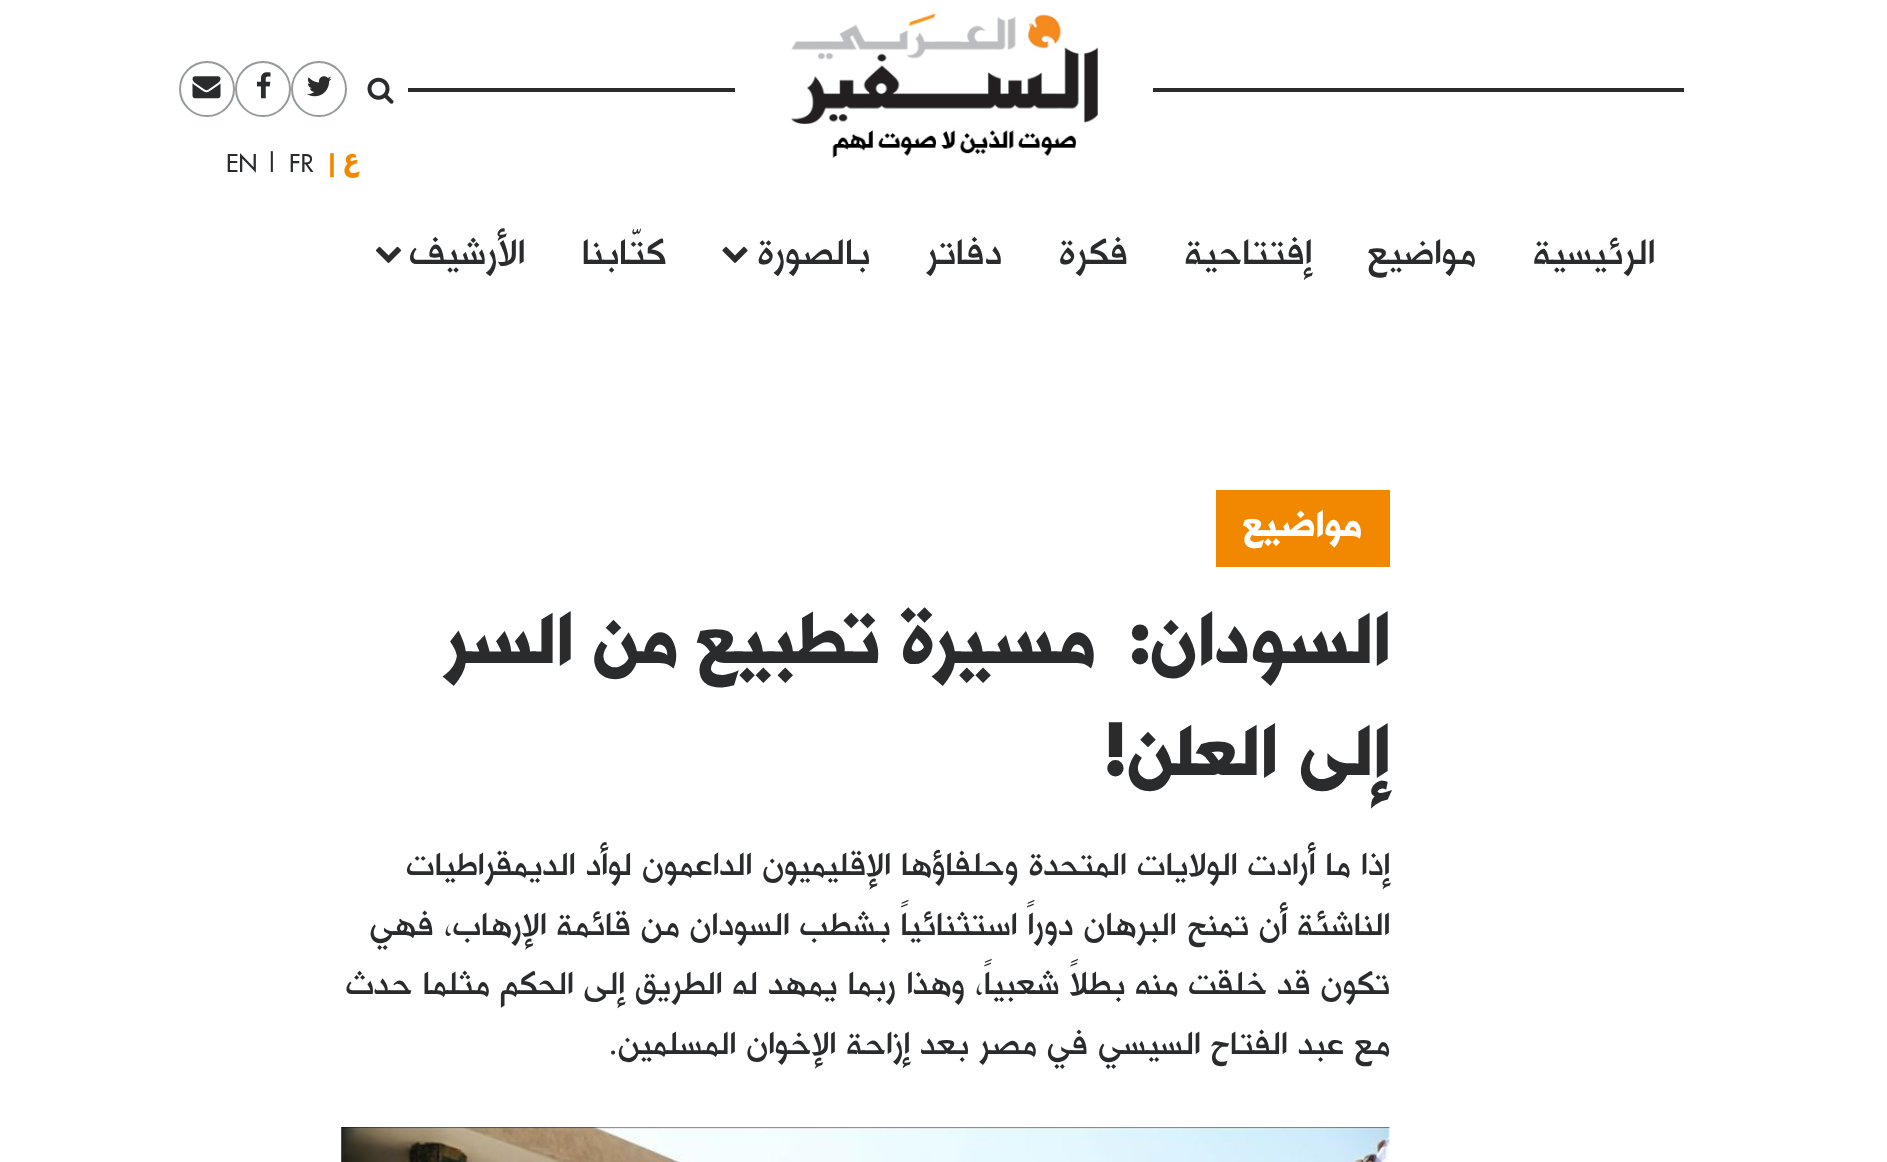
<!DOCTYPE html>
<meta charset="utf-8">
<style>body { margin: 0 } canvas { display: block }</style>
<canvas id="canvas" width="1887" height="1162"></canvas>
<script type="module">
  const canvas = document.getElementById("canvas");
  const g = canvas.getContext("2d");
  g.miterLimit = 4;
  g.fontKerning = "normal";
  function drawText(s, x, y, [font, color]) {
    g.font = font;
    g.fillStyle = color;
    g.fillText(s, x, y);
  }
  function fillBox(x, y, w, h, color) {
    g.fillStyle = color;
    g.fillRect(x, y, w, h);
  }
  async function drawPicture(src, x, y, w, h) {
    const img = new Image();
    img.src = src;
    await img.decode();
    g.drawImage(img, x, y, w, h);
  }

  const s1 = ["bold 24px Futura", "#F18800"];
  const s2 = ["24px Futura", "#292B2C"];
  const s3 = ["39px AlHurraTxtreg", "#292B2C"];
  const s4 = ["bold 35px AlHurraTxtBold", "#FFFFFF"];
  const s5 = ["bold 70px AlHurraTxtBold", "#292B2C"];
  const s6 = ["bold 70px Futura", "#292B2C"];
  const s7 = ["35px AlHurraTxtreg", "#292B2C"];
  const s8 = ["35px Futura", "#292B2C"];

  fillBox(0, 0, 1887, 1162, "#FFFFFF");
  fillBox(408, 88, 1276, 4, "#292B2C");
  fillBox(735, 88, 418, 4, "#FFFFFF");
  await drawPicture("pic1.png", 791, 13, 307, 145);
  await drawPicture("pic2.png", 367, 77, 27, 27);
  g.beginPath();
  g.arc(319, 89, 27, 0, Math.PI * 2);
  g.strokeStyle = "#969A9C";
  g.lineWidth = 2;
  g.stroke();
  await drawPicture("pic3.png", 307, 76, 25, 21);
  g.beginPath();
  g.arc(263, 89, 27, 0, Math.PI * 2);
  g.stroke();
  await drawPicture("pic4.png", 257, 72, 14, 27);
  g.beginPath();
  g.arc(207, 89, 27, 0, Math.PI * 2);
  g.stroke();
  await drawPicture("pic5.png", 192, 76, 29, 23);
  await drawPicture("pic6.png", 344, 153, 16, 25);
  drawText("|", 325, 172, s1);
  drawText("FR", 289, 172, s2);
  drawText("|", 265, 172, s2);
  drawText("EN", 226, 172, s2);
  g.direction = "rtl";
  drawText("الرئيسية", 1655, 264, s3);
  drawText("مواضيع", 1476, 264, s3);
  drawText("إفتتاحية", 1312, 264, s3);
  drawText("فكرة", 1128, 264, s3);
  drawText("دفاتر", 1002, 264, s3);
  drawText("بالصورة", 870, 264, s3);
  await drawPicture("pic7.png", 722, 246, 26, 17);
  drawText("كتّابنا", 666, 264, s3);
  drawText("الأرشيف", 525, 264, s3);
  await drawPicture("pic8.png", 375, 246, 27, 17);
  fillBox(1216, 490, 174, 77, "#F18800");
  drawText("مواضيع", 1362, 536, s4);
  drawText("السودان", 1390, 663, s5);
  drawText(":", 1152, 663, s6);
  g.wordSpacing = "7.5px";
  drawText("مسيرة تطبيع من السر", 1096, 663, s5);
  g.wordSpacing = "10px";
  drawText("إلى العلن", 1390, 775, s5);
  g.wordSpacing = "0px";
  drawText("!", 1129, 775, s6);
  g.wordSpacing = "3.25px";
  drawText("إذا ما أرادت الولايات المتحدة وحلفاؤها الإقليميون الداعمون لوأد الديمقراطيات", 1390, 875, s7);
  drawText("الناشئة أن تمنح البرهان دوراً استثنائياً بشطب السودان من قائمة الإرهاب، فهي", 1390, 935, s7);
  drawText("تكون قد خلقت منه بطلاً شعبياً، وهذا ربما يمهد له الطريق إلى الحكم مثلما حدث", 1390, 994, s7);
  drawText("مع عبد الفتاح السيسي في مصر بعد إزاحة الإخوان المسلمين", 1390, 1054, s7);
  g.wordSpacing = "0px";
  drawText(".", 618, 1054, s8);
  await drawPicture("pic9.png", 341, 1127, 1049, 35);
</script>
